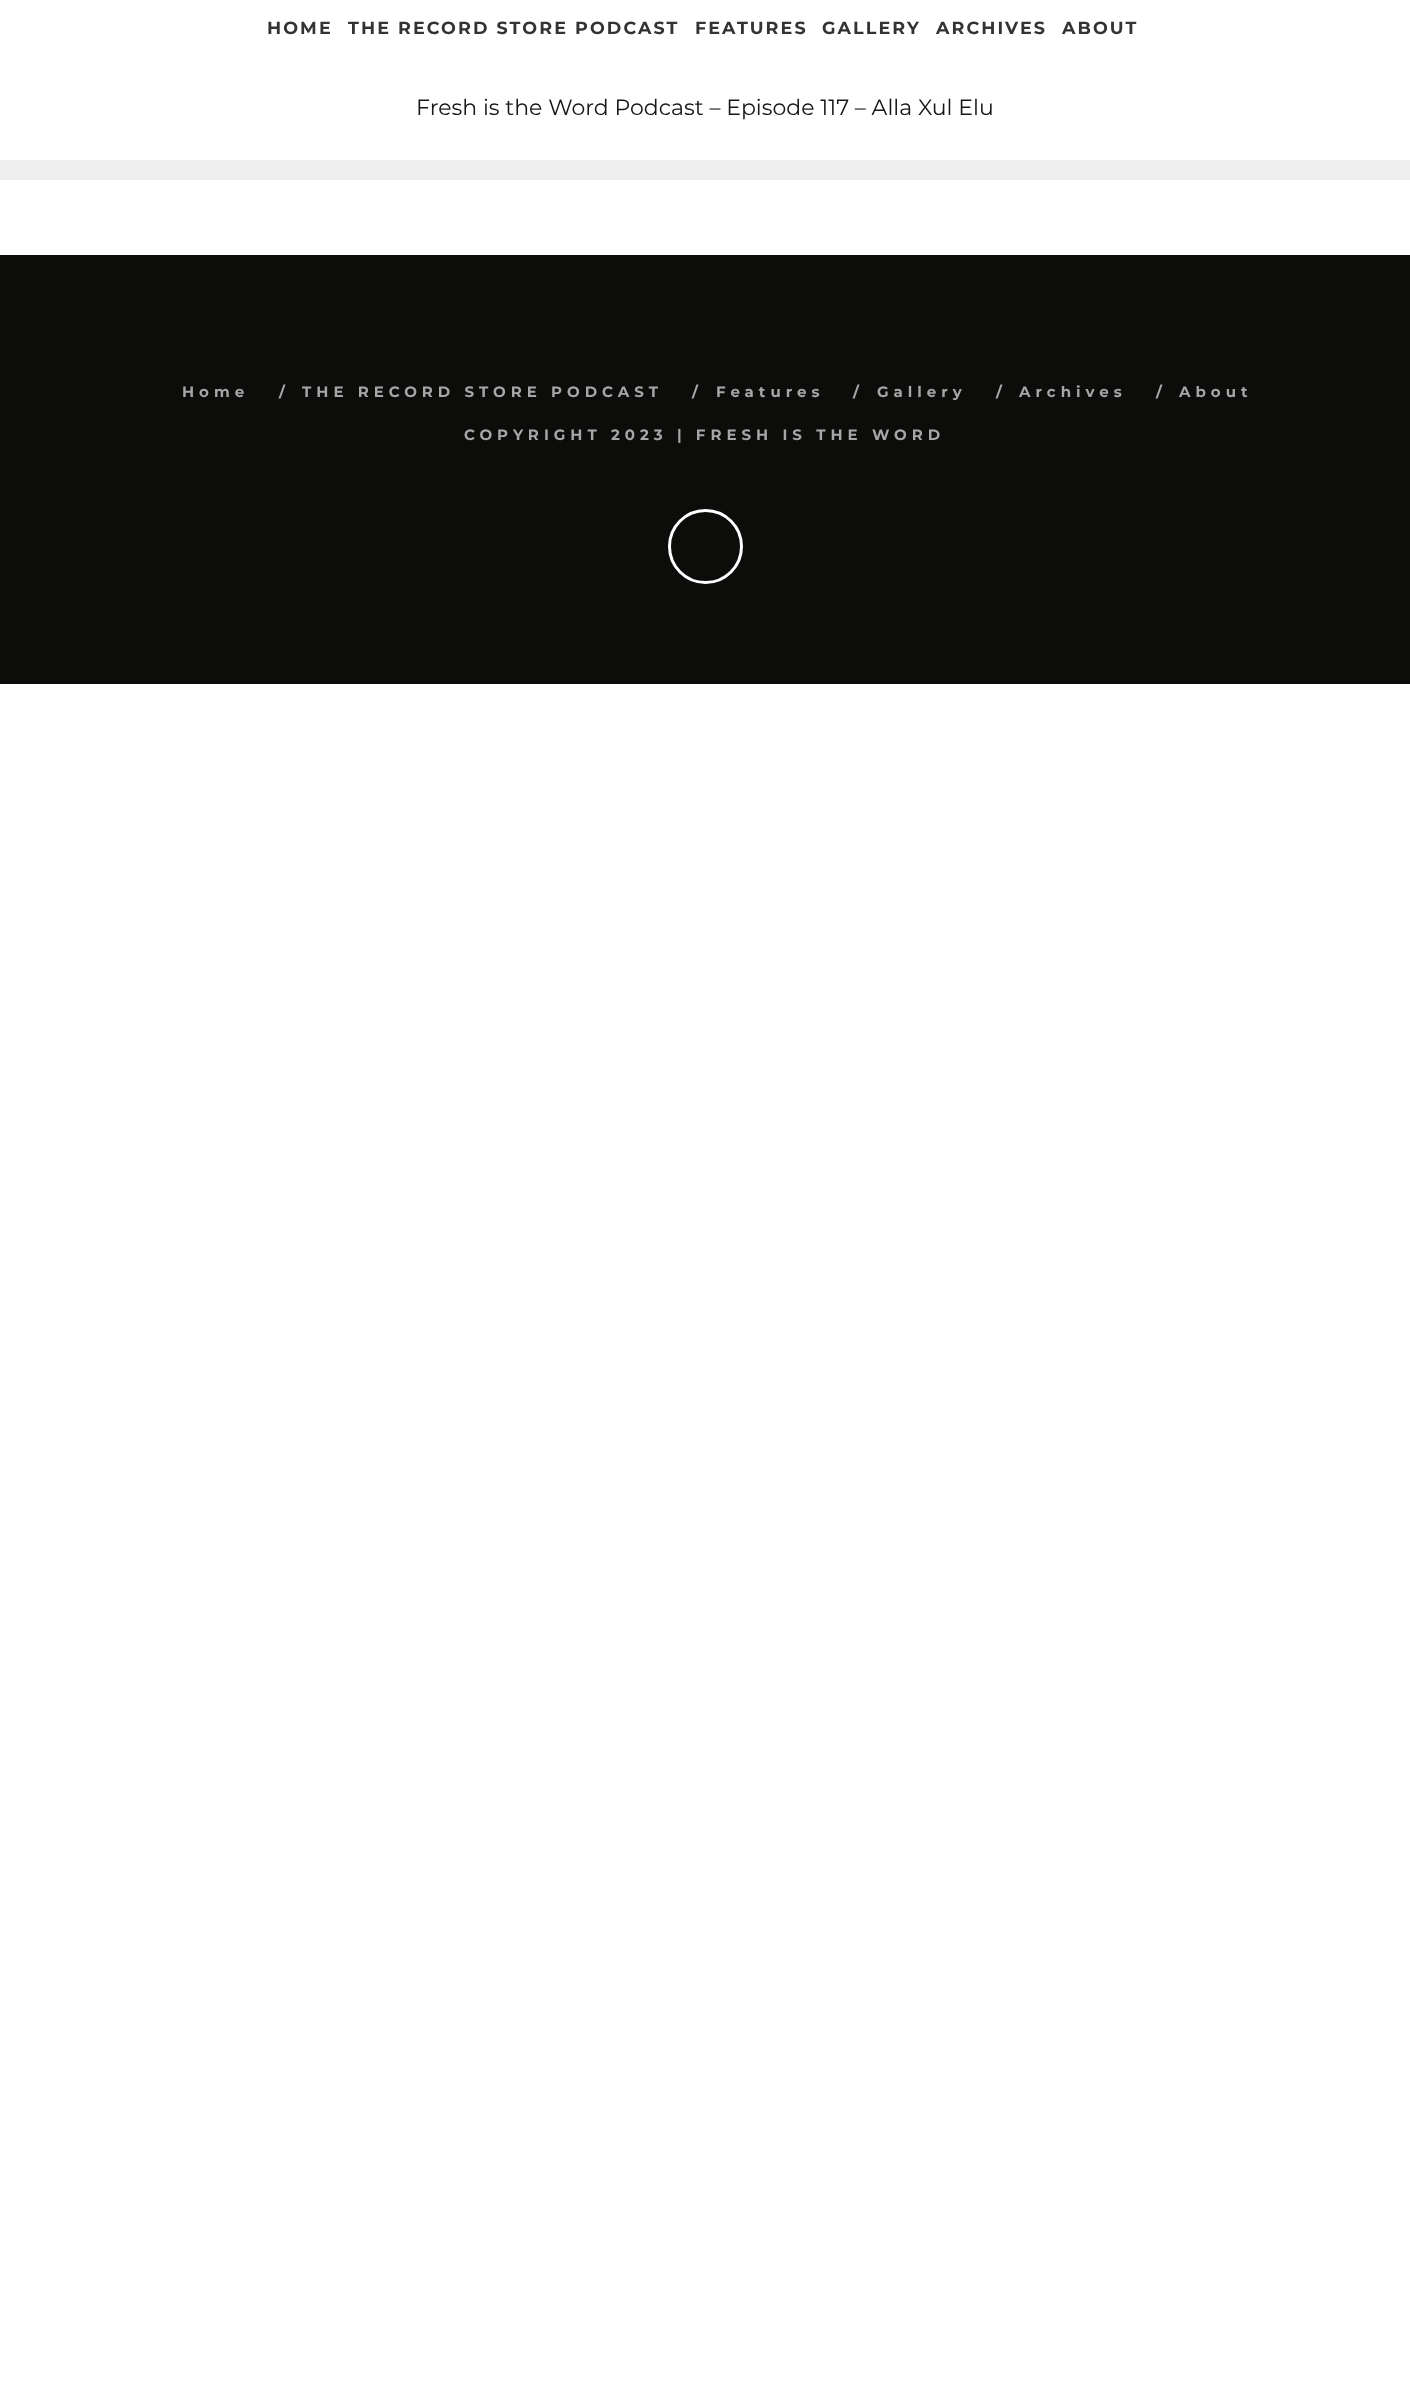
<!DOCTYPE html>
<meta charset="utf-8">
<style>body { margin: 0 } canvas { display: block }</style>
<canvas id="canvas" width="1410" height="2386"></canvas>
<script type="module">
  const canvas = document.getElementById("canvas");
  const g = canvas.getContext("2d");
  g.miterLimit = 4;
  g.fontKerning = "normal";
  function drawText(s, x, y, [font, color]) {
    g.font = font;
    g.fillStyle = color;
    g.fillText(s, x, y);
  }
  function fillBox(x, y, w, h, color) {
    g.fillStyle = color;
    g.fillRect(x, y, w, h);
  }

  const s1 = ["bold 17.5px Montserrat", "#333333"];
  const s2 = ["22px Montserrat", "#161616"];
  const s3 = ["bold 15px Montserrat", "#A6A6A6"];

  fillBox(0, 0, 1410, 2386, "#FFFFFF");
  g.letterSpacing = "2.1px";
  drawText("HOME", 267, 34, s1);
  drawText("THE RECORD STORE PODCAST", 348, 34, s1);
  drawText("FEATURES", 695, 34, s1);
  drawText("GALLERY", 822, 34, s1);
  drawText("ARCHIVES", 936, 34, s1);
  drawText("ABOUT", 1062, 34, s1);
  g.letterSpacing = "0px";
  drawText("Fresh is the Word Podcast – Episode 117 – Alla Xul Elu", 416, 115, s2);
  fillBox(0, 160, 1410, 20, "#EEEEEE");
  fillBox(0, 255, 1410, 429, "#0C0C0B");
  g.letterSpacing = "5px";
  drawText("Home", 182, 397, s3);
  drawText("/", 279, 397, s3);
  drawText("THE RECORD STORE PODCAST", 302, 397, s3);
  drawText("/", 692, 397, s3);
  drawText("Features", 716, 397, s3);
  drawText("/", 853, 397, s3);
  drawText("Gallery", 877, 397, s3);
  drawText("/", 996, 397, s3);
  drawText("Archives", 1019, 397, s3);
  drawText("/", 1156, 397, s3);
  drawText("About", 1179, 397, s3);
  drawText("COPYRIGHT 2023 | FRESH IS THE WORD", 464, 440, s3);
  g.beginPath();
  g.arc(705.5, 546.5, 36, 0, Math.PI * 2);
  g.strokeStyle = "#FFFFFF";
  g.lineWidth = 3;
  g.stroke();
</script>
